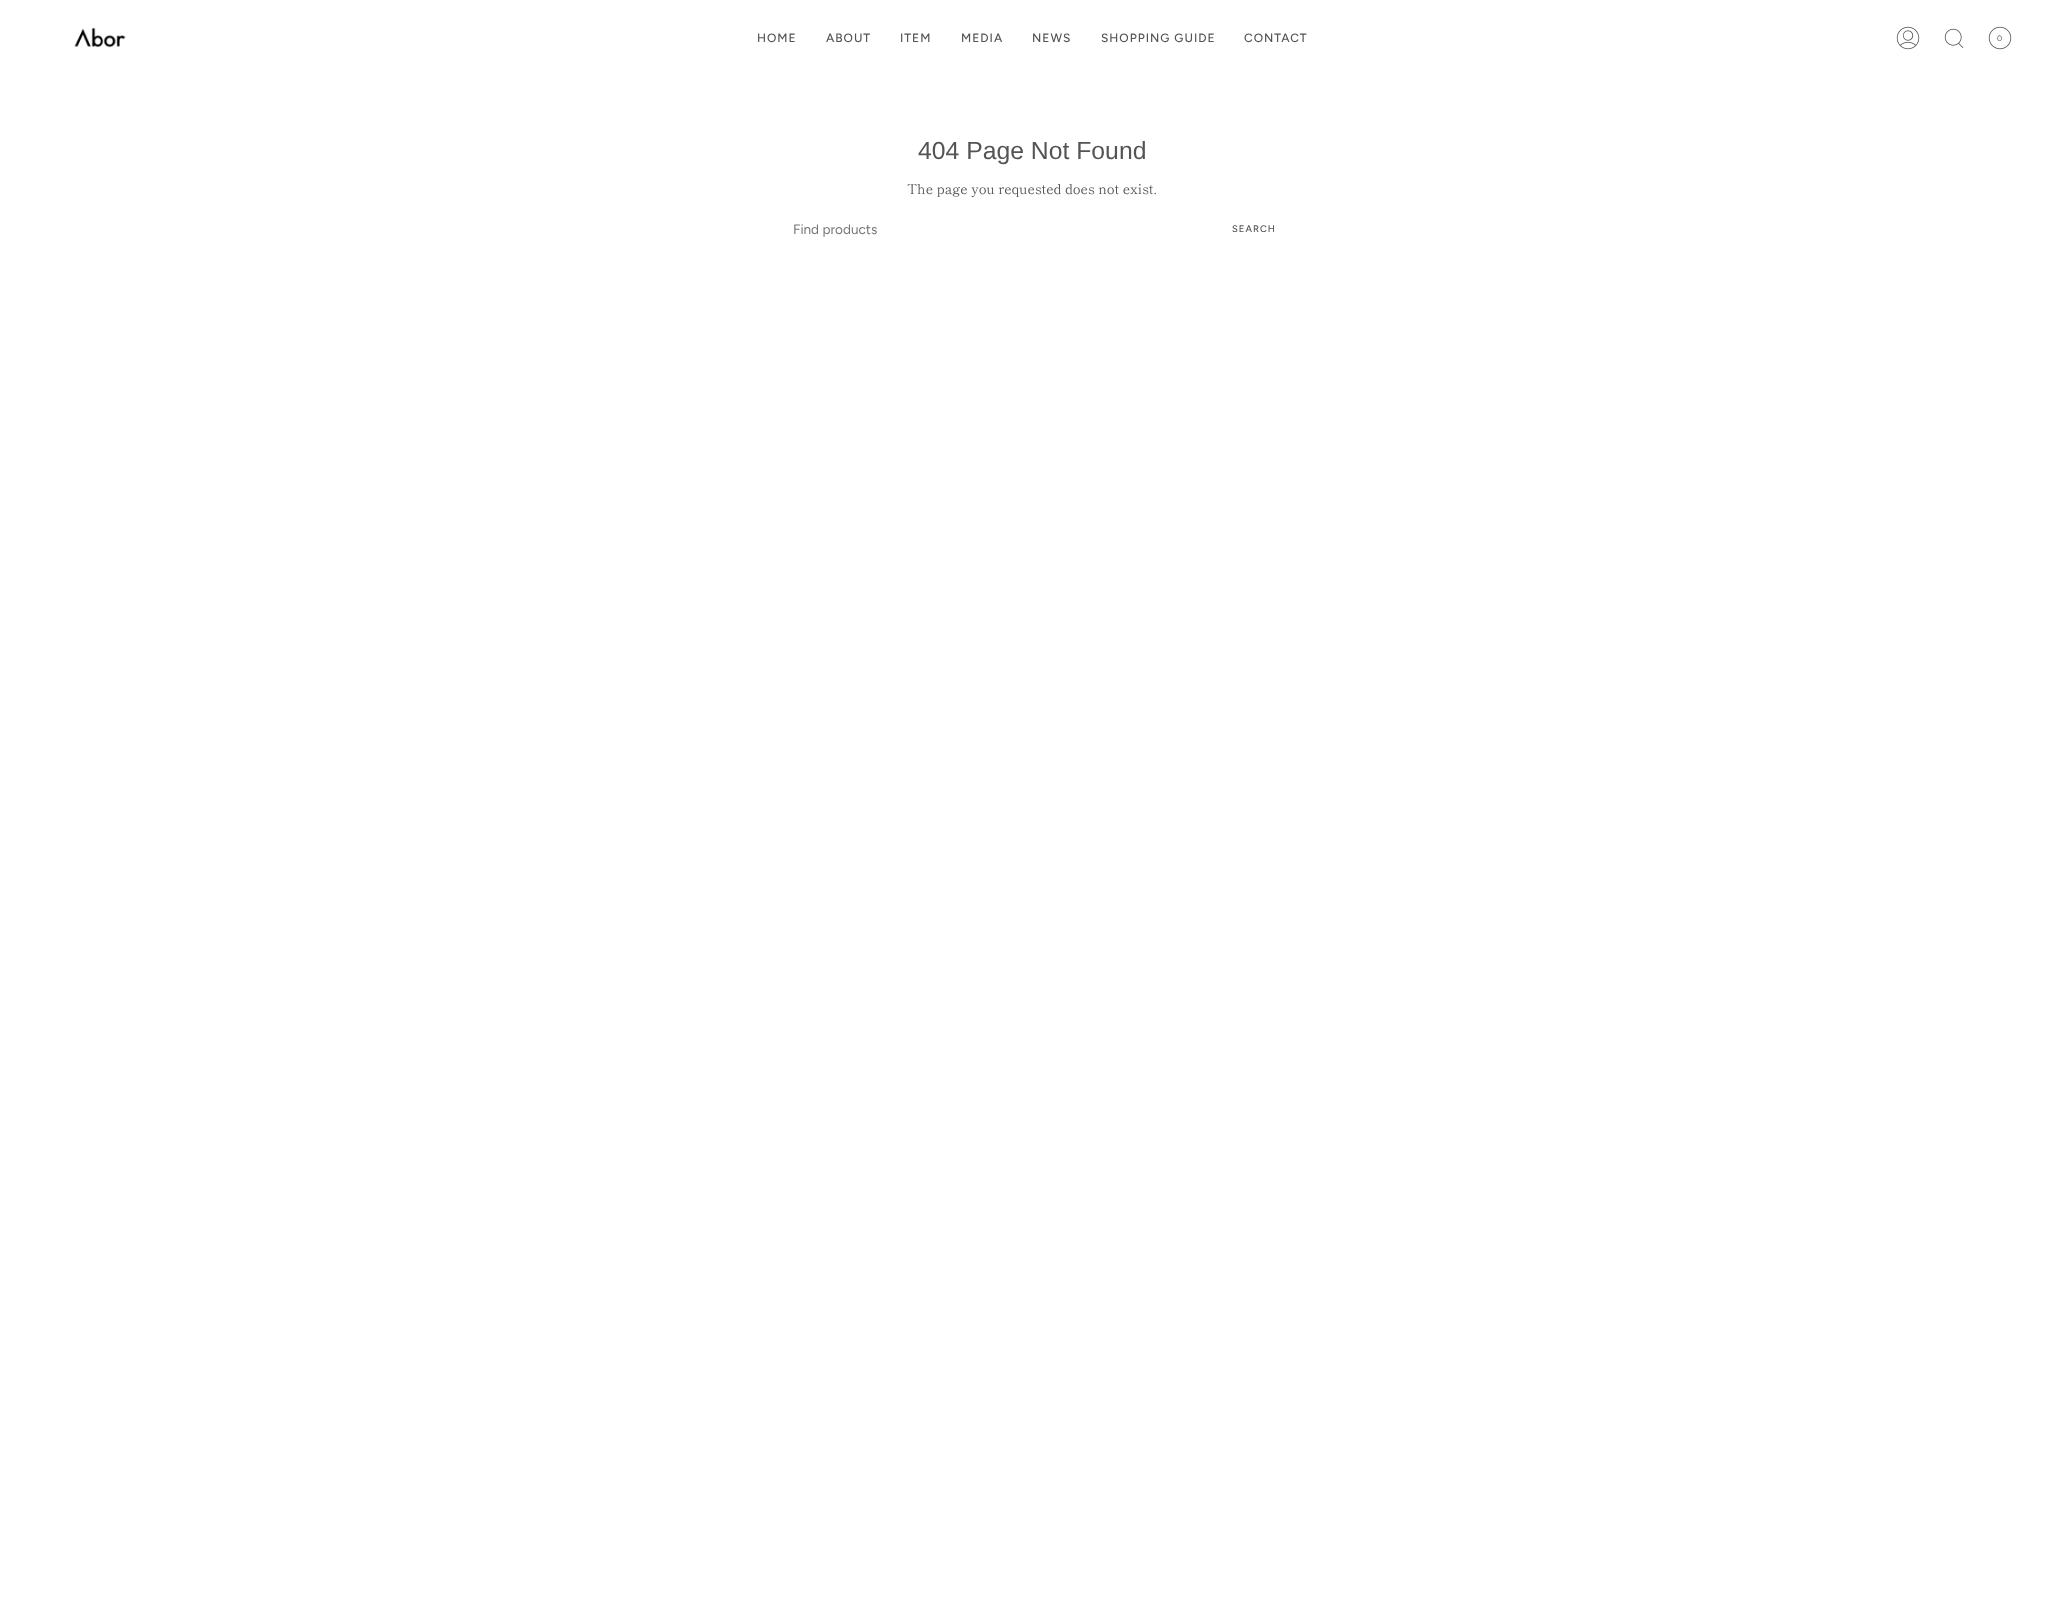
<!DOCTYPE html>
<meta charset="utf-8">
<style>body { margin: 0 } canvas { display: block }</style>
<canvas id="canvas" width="2063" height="1615"></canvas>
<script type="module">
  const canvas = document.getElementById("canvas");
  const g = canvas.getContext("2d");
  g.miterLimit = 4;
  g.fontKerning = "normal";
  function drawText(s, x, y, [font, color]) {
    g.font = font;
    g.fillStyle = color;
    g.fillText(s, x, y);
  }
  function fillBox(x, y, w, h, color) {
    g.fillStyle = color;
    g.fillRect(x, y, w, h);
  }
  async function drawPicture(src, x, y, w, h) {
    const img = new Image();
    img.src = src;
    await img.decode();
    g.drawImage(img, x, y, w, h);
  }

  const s1 = ["500 12px Figtree", "#545454"];
  const s2 = ["8px Figtree", "#545454"];
  const s3 = ["24.75px Liberation Sans", "#545454"];
  const s4 = ["13.6px 'Shippori Mincho B1'", "#545454"];
  const s5 = ["13.6px Figtree", "#757575"];
  const s6 = ["500 9.5px Figtree", "#545454"];

  fillBox(0, 0, 2063, 1615, "#FFFFFF");
  await drawPicture("pic1.png", 74, 27, 52, 21);
  g.letterSpacing = "1px";
  drawText("HOME", 757, 42, s1);
  drawText("ABOUT", 826, 42, s1);
  drawText("ITEM", 900, 42, s1);
  drawText("MEDIA", 961, 42, s1);
  drawText("NEWS", 1032, 42, s1);
  drawText("SHOPPING GUIDE", 1101, 42, s1);
  drawText("CONTACT", 1244, 42, s1);
  await drawPicture("pic2.png", 1896, 26, 24, 24);
  await drawPicture("pic3.png", 1944, 28, 20, 20);
  await drawPicture("pic4.png", 1988, 26, 24, 24);
  drawText("0", 1997, 41, s2);
  g.letterSpacing = "0px";
  drawText("404 Page Not Found", 918, 159, s3);
  drawText("The page you requested does not exist.", 907, 194, s4);
  drawText("Find products", 793, 234, s5);
  g.letterSpacing = "1px";
  drawText("SEARCH", 1232, 232, s6);
</script>
